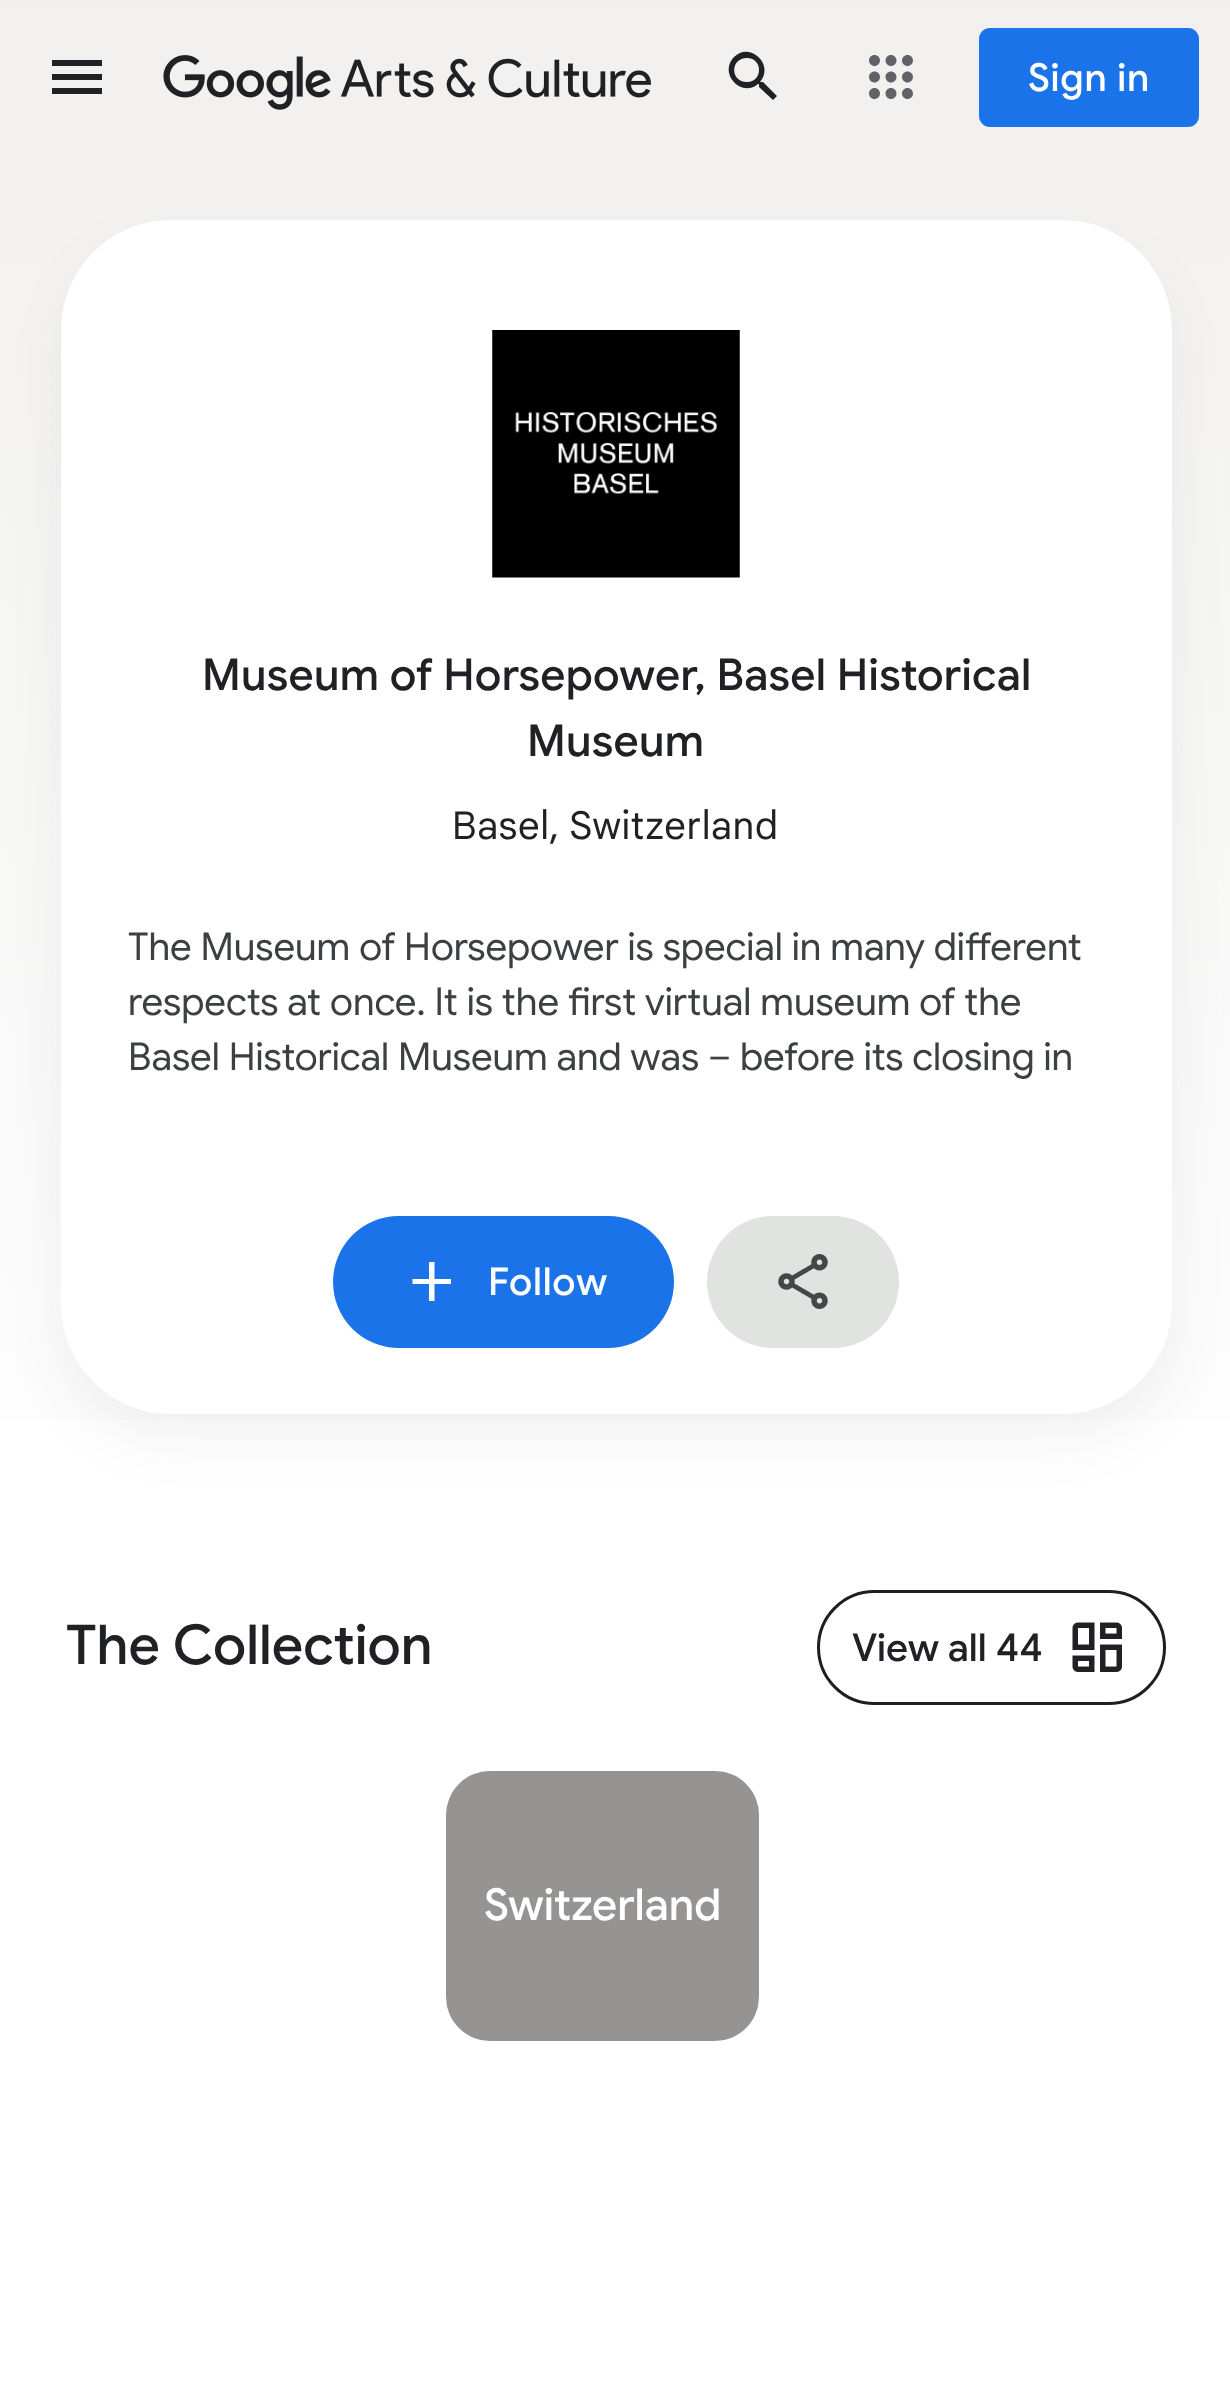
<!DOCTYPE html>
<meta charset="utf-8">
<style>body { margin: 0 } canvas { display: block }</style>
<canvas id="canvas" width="1230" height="2394"></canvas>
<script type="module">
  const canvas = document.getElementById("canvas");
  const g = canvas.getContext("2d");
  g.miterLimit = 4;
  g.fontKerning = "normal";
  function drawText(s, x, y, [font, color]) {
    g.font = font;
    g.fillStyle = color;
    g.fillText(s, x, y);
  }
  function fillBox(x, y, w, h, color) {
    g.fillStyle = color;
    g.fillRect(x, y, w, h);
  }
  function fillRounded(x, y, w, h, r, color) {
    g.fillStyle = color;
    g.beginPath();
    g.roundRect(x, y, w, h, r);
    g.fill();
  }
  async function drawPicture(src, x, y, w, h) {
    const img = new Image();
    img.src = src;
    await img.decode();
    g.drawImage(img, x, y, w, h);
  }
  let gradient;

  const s1 = ["500 38.5px Google Sans", "#FFFFFF"];
  const s2 = ["500 44px Google Sans", "#202124"];
  const s3 = ["38.5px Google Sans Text", "#202124"];
  const s4 = ["38.5px Google Sans", "#3C4043"];
  const s5 = ["500 55px Google Sans", "#202124"];
  const s6 = ["500 38.5px Google Sans", "#202124"];
  const s7 = ["500 44px Google Sans", "#FFFFFF"];

  fillBox(0, 0, 1230, 2394, "#FFFFFF");
  gradient = g.createLinearGradient(616, 0, 616, 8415);
  gradient.addColorStop(0, "#F1F0EF");
  gradient.addColorStop(0.2, "#FFFFFF");
  gradient.addColorStop(1, "#F1F0EF");
  g.fillStyle = gradient;
  g.fillRect(0, 0, 1230, 1420);
  g.fillStyle = "#202124";
  g.beginPath();
  g.moveTo(52, 94);
  g.lineTo(102, 94);
  g.lineTo(102, 88);
  g.lineTo(52, 88);
  g.closePath();
  g.moveTo(52, 80);
  g.lineTo(102, 80);
  g.lineTo(102, 74);
  g.lineTo(52, 74);
  g.closePath();
  g.moveTo(52, 60);
  g.lineTo(52, 66);
  g.lineTo(102, 66);
  g.lineTo(102, 60);
  g.closePath();
  g.fill();
  await drawPicture("pic1.png", 163, 55, 488, 55);
  g.beginPath();
  g.moveTo(763, 82);
  g.lineTo(761, 82);
  g.lineTo(760, 82);
  g.bezierCurveTo(775, 65, 750, 41, 734, 57);
  g.bezierCurveTo(718, 74, 742, 98, 758, 84);
  g.lineTo(759, 84);
  g.lineTo(759, 87);
  g.lineTo(773, 100);
  g.lineTo(777, 96);
  g.closePath();
  g.moveTo(747, 82);
  g.bezierCurveTo(730, 82, 730, 58, 747, 58);
  g.bezierCurveTo(763, 58, 763, 82, 747, 82);
  g.closePath();
  g.fill();
  await drawPicture("pic2.png", 869, 55, 44, 44);
  fillRounded(979, 28, 220, 99, 11, "#1A73E8");
  g.letterSpacing = "0.75px";
  drawText("Sign in", 1028, 91, s1);
  g.fillStyle = "rgba(0, 0, 0, 0.05)";
  g.filter = "blur(27.5px)";
  g.beginPath();
  g.roundRect(61, 248, 1111, 1193, 110);
  g.fill();
  g.filter = "none";
  fillRounded(61, 220, 1111, 1194, 110, "#FFFFFF");
  await drawPicture("pic3.png", 492, 330, 248, 248);
  g.letterSpacing = "0.3px";
  drawText("Museum of Horsepower, Basel Historical", 202, 690, s2);
  drawText("Museum", 527, 756, s2);
  g.letterSpacing = "0.5px";
  drawText("Basel, Switzerland", 452, 839, s3);
  g.letterSpacing = "0px";
  drawText("The Museum of Horsepower is special in many different", 128, 960, s4);
  drawText("respects at once. It is the first virtual museum of the", 128, 1015, s4);
  drawText("Basel Historical Museum and was – before its closing in", 128, 1070, s4);
  fillRounded(333, 1216, 341, 132, 66, "#1A73E8");
  g.fillStyle = "#FFFFFF";
  g.beginPath();
  g.moveTo(451, 1284);
  g.lineTo(434.5, 1284);
  g.lineTo(434.5, 1301);
  g.lineTo(429, 1301);
  g.lineTo(429, 1284);
  g.lineTo(412.5, 1284);
  g.lineTo(412.5, 1279);
  g.lineTo(429, 1279);
  g.lineTo(429, 1262);
  g.lineTo(434.5, 1262);
  g.lineTo(434.5, 1279);
  g.lineTo(451, 1279);
  g.closePath();
  g.fill();
  g.letterSpacing = "0.75px";
  drawText("Follow", 488, 1295, s1);
  fillRounded(707, 1216, 192, 132, 66, "#E1E3E1");
  await drawPicture("pic4.png", 778, 1254, 50, 55);
  g.letterSpacing = "0px";
  drawText("The Collection", 66, 1664, s5);
  g.beginPath();
  g.roundRect(818.5, 1591.5, 346, 112, 56);
  g.strokeStyle = "#1F1F1F";
  g.lineWidth = 3;
  g.stroke();
  drawText("View all 44", 852, 1661, s6);
  await drawPicture("pic5.png", 1072, 1622, 50, 50);
  fillRounded(446, 1771, 313, 270, 44, "rgba(138, 136, 135, 0.9)");
  drawText("Switzerland", 484, 1920, s7);
</script>
